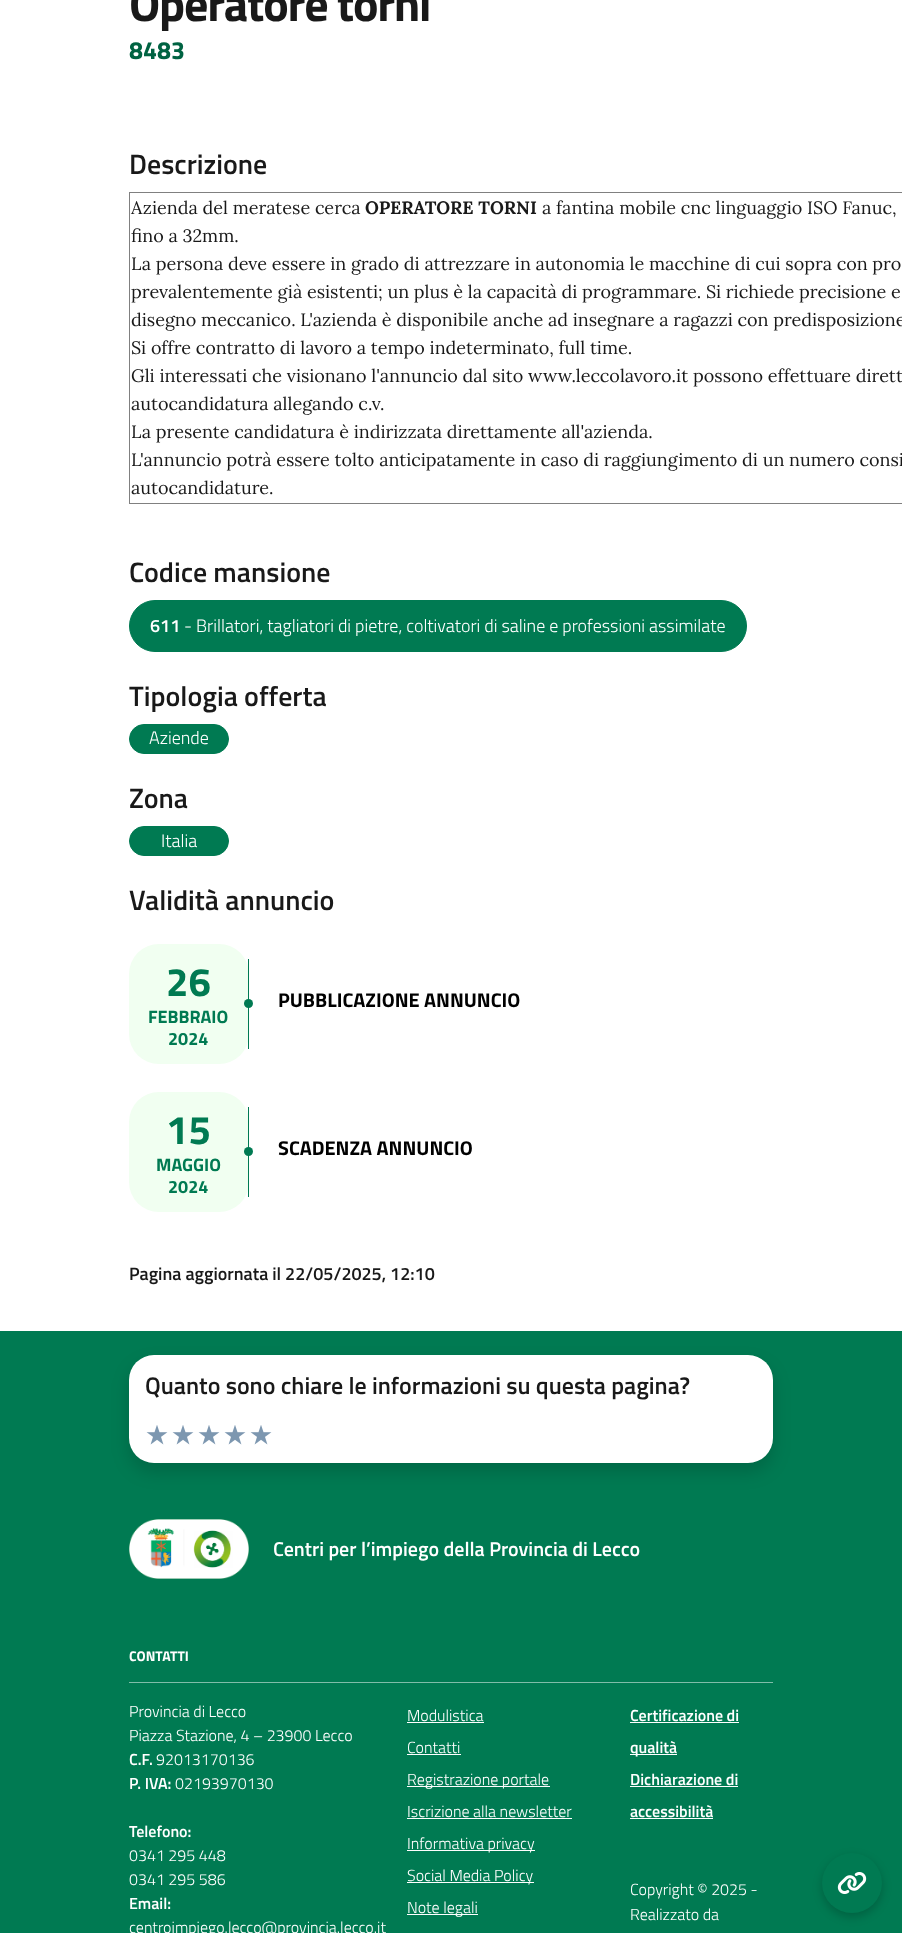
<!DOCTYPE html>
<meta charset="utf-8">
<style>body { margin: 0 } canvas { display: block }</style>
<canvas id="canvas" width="902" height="1933"></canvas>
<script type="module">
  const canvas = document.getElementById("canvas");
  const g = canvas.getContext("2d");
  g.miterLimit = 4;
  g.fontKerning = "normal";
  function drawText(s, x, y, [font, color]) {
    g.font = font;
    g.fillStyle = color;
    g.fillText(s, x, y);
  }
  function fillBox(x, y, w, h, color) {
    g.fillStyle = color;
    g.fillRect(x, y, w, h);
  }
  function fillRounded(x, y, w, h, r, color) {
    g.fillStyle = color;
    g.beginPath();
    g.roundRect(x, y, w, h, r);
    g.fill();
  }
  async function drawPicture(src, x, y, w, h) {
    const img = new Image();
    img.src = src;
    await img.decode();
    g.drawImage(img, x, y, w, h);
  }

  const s1 = ["bold 48px Titillium Web", "#191919"];
  const s2 = ["bold 25px Titillium Web", "#006342"];
  const s3 = ["600 28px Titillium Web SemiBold", "#191919"];
  const s4 = ["18px Lora", "#191919"];
  const s5 = ["bold 18px Lora", "#191919"];
  const s6 = ["600 18px Titillium Web SemiBold", "#FFFFFF"];
  const s7 = ["300 18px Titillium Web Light", "#FFFFFF"];
  const s8 = ["bold 40px Titillium Web", "#007A52"];
  const s9 = ["bold 18px Titillium Web", "#007A52"];
  const s10 = ["bold 20px Titillium Web", "#000000"];
  const s11 = ["600 18px Titillium Web SemiBold", "#191919"];
  const s12 = ["600 24px Titillium Web SemiBold", "#191919"];
  const s13 = ["600 20px Titillium Web SemiBold", "#FFFFFF"];
  const s14 = ["bold 14px Titillium Web", "#FFFFFF"];
  const s15 = ["300 16px Titillium Web Light", "#FFFFFF"];
  const s16 = ["600 16px Titillium Web SemiBold", "#FFFFFF"];

  fillBox(0, 0, 902, 1933, "#FFFFFF");
  g.letterSpacing = "-1.25px";
  drawText("Operatore torni", 129, 21, s1);
  g.letterSpacing = "0px";
  drawText("8483", 129, 59, s2);
  drawText("Descrizione", 129, 174, s3);
  fillBox(129, 192, 773, 1, "#808080");
  fillBox(129, 503, 773, 1, "#808080");
  fillBox(129, 192, 1, 312, "#808080");
  drawText("Azienda del meratese cerca", 131, 214, s4);
  drawText("OPERATORE TORNI", 365, 214, s5);
  drawText("a fantina mobile cnc linguaggio ISO Fanuc,", 542, 214, s4);
  drawText("fino a 32mm.", 131, 242, s4);
  drawText("La persona deve essere in grado di attrezzare in autonomia le macchine di cui sopra con pro", 131, 270, s4);
  drawText("prevalentemente già esistenti; un plus è la capacità di programmare. Si richiede precisione e", 131, 298, s4);
  drawText("disegno meccanico. L'azienda è disponibile anche ad insegnare a ragazzi con predisposizione", 131, 326, s4);
  drawText("Si offre contratto di lavoro a tempo indeterminato, full time.", 131, 354, s4);
  drawText("Gli interessati che visionano l'annuncio dal sito www.leccolavoro.it possono effettuare dirett", 131, 382, s4);
  drawText("autocandidatura allegando c.v.", 131, 410, s4);
  drawText("La presente candidatura è indirizzata direttamente all'azienda.", 131, 438, s4);
  drawText("L'annuncio potrà essere tolto anticipatamente in caso di raggiungimento di un numero consi", 131, 466, s4);
  drawText("autocandidature.", 131, 494, s4);
  drawText("Codice mansione", 129, 582, s3);
  g.fillStyle = "#007A52";
  g.beginPath();
  g.roundRect(129.5, 600.5, 617, 51, 25.5);
  g.fill();
  g.strokeStyle = "#007A52";
  g.stroke();
  drawText("611", 150, 632, s6);
  drawText("- Brillatori, tagliatori di pietre, coltivatori di saline e professioni assimilate", 184, 632, s7);
  drawText("Tipologia offerta", 129, 706, s3);
  g.fillStyle = "#007A52";
  g.beginPath();
  g.roundRect(129.5, 724.5, 99, 29, 14.5);
  g.fill();
  g.stroke();
  drawText("Aziende", 149, 744, s7);
  drawText("Zona", 129, 808, s3);
  g.fillStyle = "#007A52";
  g.beginPath();
  g.roundRect(129.5, 826.5, 99, 29, 14.5);
  g.fill();
  g.stroke();
  drawText("Italia", 161, 847, s7);
  drawText("Validità annuncio", 129, 910, s3);
  fillRounded(129, 944, 120, 120, 30, "#F1FFF1");
  fillBox(248, 959, 1, 90, "#007A52");
  drawText("26", 166, 996, s8);
  g.beginPath();
  g.arc(248.5, 1003.5, 4.5, 0, Math.PI * 2);
  g.fill();
  drawText("FEBBRAIO", 148, 1023, s9);
  drawText("2024", 168, 1045, s9);
  drawText("PUBBLICAZIONE ANNUNCIO", 278, 1007, s10);
  fillRounded(129, 1092, 120, 120, 30, "#F1FFF1");
  fillBox(248, 1107, 1, 90, "#007A52");
  drawText("15", 166, 1144, s8);
  g.beginPath();
  g.arc(248.5, 1151.5, 4.5, 0, Math.PI * 2);
  g.fill();
  drawText("MAGGIO", 156, 1171, s9);
  drawText("2024", 168, 1193, s9);
  drawText("SCADENZA ANNUNCIO", 278, 1155, s10);
  drawText("Pagina aggiornata il 22/05/2025, 12:10", 129, 1280, s11);
  fillBox(0, 1331, 902, 602, "#007A52");
  g.fillStyle = "rgba(0, 0, 0, 0.15)";
  g.filter = "blur(9px)";
  g.beginPath();
  g.roundRect(129, 1364, 644, 108, 25);
  g.fill();
  g.filter = "none";
  fillRounded(129, 1355, 644, 108, 25, "#FFFFFF");
  drawText("Quanto sono chiare le informazioni su questa pagina?", 145, 1394, s12);
  await drawPicture("pic1.png", 146, 1425, 22, 20);
  await drawPicture("pic1.png", 172, 1425, 22, 20);
  await drawPicture("pic1.png", 198, 1425, 22, 20);
  await drawPicture("pic1.png", 224, 1425, 22, 20);
  await drawPicture("pic1.png", 250, 1425, 22, 20);
  await drawPicture("pic2.png", 129, 1519, 120, 60);
  drawText("Centri per l’impiego della Provincia di Lecco", 273, 1556, s13);
  fillBox(129, 1682, 644, 1, "#80BDA9");
  drawText("CONTATTI", 129, 1661, s14);
  drawText("Provincia di Lecco", 129, 1717, s15);
  drawText("Piazza Stazione, 4 – 23900 Lecco", 129, 1741, s15);
  drawText("C.F.", 129, 1765, s16);
  drawText("92013170136", 156, 1765, s15);
  drawText("P. IVA:", 129, 1789, s16);
  drawText("02193970130", 175, 1789, s15);
  drawText("Telefono:", 129, 1837, s16);
  drawText("0341 295 448", 129, 1861, s15);
  drawText("0341 295 586", 129, 1885, s15);
  drawText("Email:", 129, 1909, s16);
  drawText("centroimpiego.lecco@provincia.lecco.it", 129, 1933, s15);
  drawText("Modulistica", 407, 1721, s15);
  fillBox(407, 1722, 77, 1, "#FFFFFF");
  drawText("Contatti", 407, 1753, s15);
  fillBox(407, 1754, 54, 1, "#FFFFFF");
  fillBox(407, 1786, 143, 1, "#FFFFFF");
  drawText("Registrazione portale", 407, 1785, s15);
  drawText("Iscrizione alla newsletter", 407, 1817, s15);
  fillBox(407, 1818, 165, 1, "#FFFFFF");
  fillBox(407, 1850, 128, 1, "#FFFFFF");
  drawText("Informativa privacy", 407, 1849, s15);
  fillBox(407, 1882, 127, 1, "#FFFFFF");
  drawText("Social Media Policy", 407, 1881, s15);
  fillBox(407, 1914, 71, 1, "#FFFFFF");
  drawText("Note legali", 407, 1913, s15);
  drawText("Certificazione di", 630, 1721, s16);
  fillBox(630, 1722, 109, 1, "#FFFFFF");
  fillBox(630, 1754, 47, 1, "#FFFFFF");
  drawText("qualità", 630, 1753, s16);
  drawText("Dichiarazione di", 630, 1785, s16);
  fillBox(630, 1786, 108, 1, "#FFFFFF");
  drawText("accessibilità", 630, 1817, s16);
  fillBox(630, 1818, 83, 1, "#FFFFFF");
  drawText("Copyright © 2025 -", 630, 1895, s15);
  drawText("Realizzato da", 630, 1920, s15);
  g.fillStyle = "rgba(0, 0, 0, 0.2)";
  g.filter = "blur(5px)";
  g.beginPath();
  g.roundRect(822, 1857, 60, 60, 30);
  g.fill();
  g.filter = "none";
  g.fillStyle = "#007A52";
  g.beginPath();
  g.arc(852, 1883, 30, 0, Math.PI * 2);
  g.fill();
  await drawPicture("pic3.png", 837, 1872, 30, 22);
</script>
